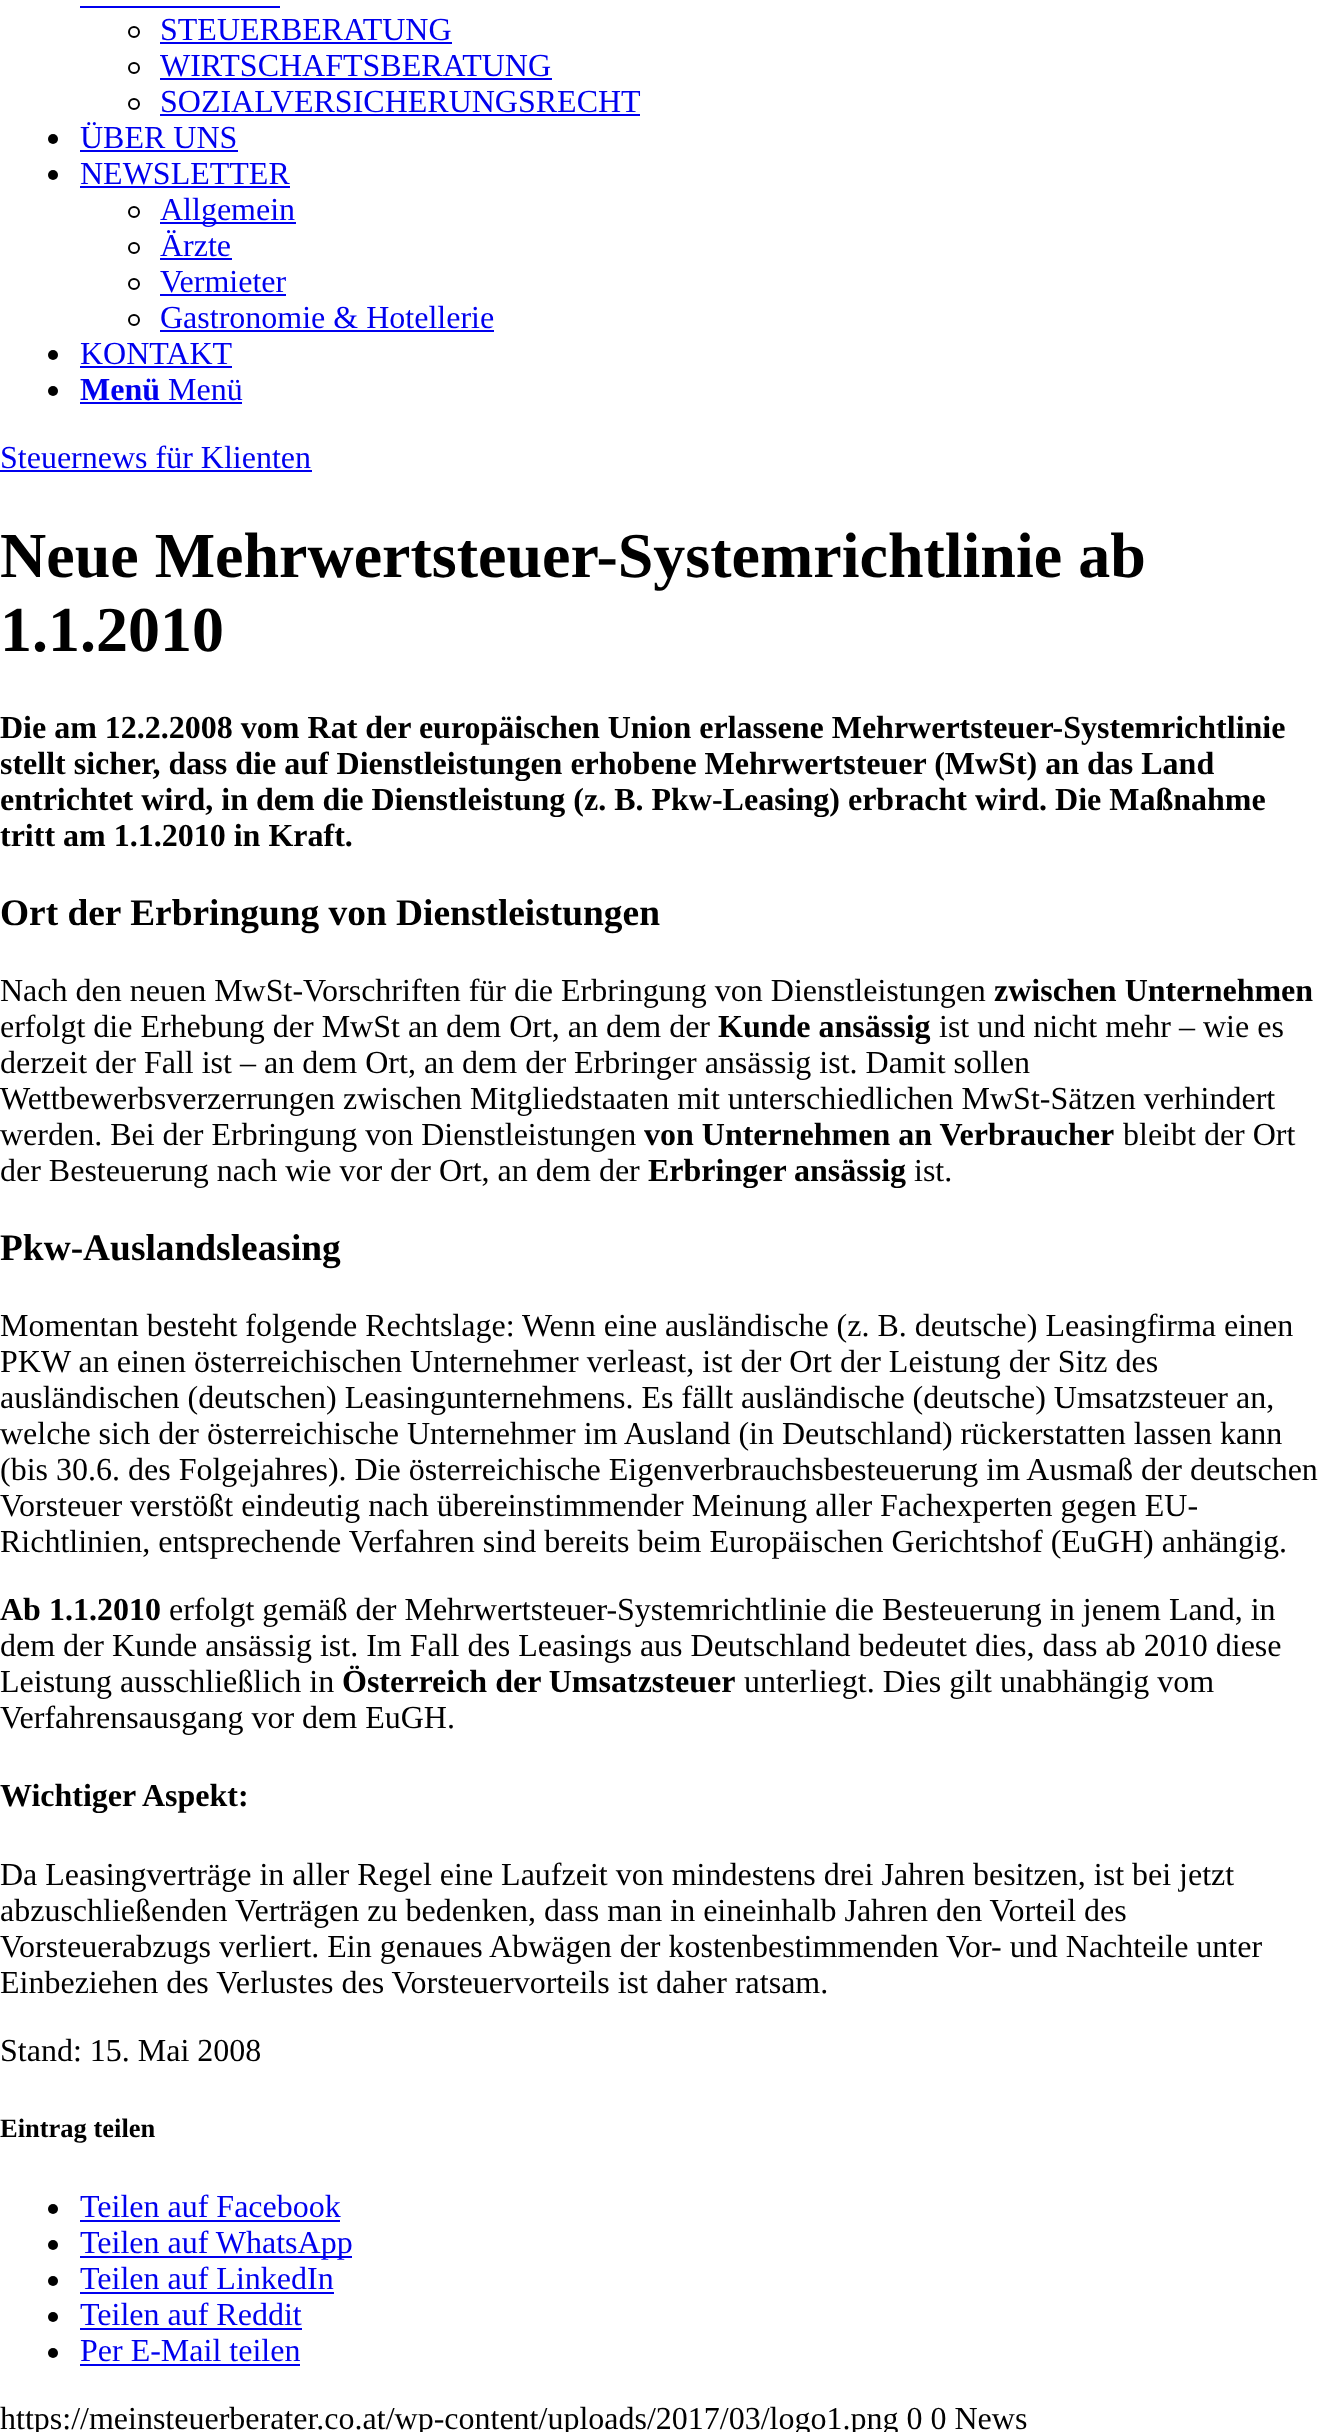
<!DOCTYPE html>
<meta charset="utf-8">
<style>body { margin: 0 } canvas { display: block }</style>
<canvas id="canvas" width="1327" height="2432"></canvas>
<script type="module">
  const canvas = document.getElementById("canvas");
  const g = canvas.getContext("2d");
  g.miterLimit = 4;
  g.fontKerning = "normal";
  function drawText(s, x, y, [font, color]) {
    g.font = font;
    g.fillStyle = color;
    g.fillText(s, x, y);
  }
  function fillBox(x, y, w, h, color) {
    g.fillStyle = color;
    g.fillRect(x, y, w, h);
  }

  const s1 = ["32px Liberation Serif", "#0000EE"];
  const s2 = ["bold 32px Liberation Serif", "#0000EE"];
  const s3 = ["bold 64px Liberation Serif", "#000000"];
  const s4 = ["bold 32px Liberation Serif", "#000000"];
  const s5 = ["bold 37.4px Liberation Serif", "#000000"];
  const s6 = ["32px Liberation Serif", "#000000"];
  const s7 = ["bold 26.5px Liberation Serif", "#000000"];

  fillBox(0, 0, 1327, 2432, "#FFFFFF");
  fillBox(80, 6, 200, 2, "#0000EE");
  g.beginPath();
  g.arc(134, 32, 5, 0, Math.PI * 2);
  g.strokeStyle = "#000000";
  g.lineWidth = 2;
  g.stroke();
  drawText("STEUERBERATUNG", 160, 40, s1);
  fillBox(160, 42, 292, 2, "#0000EE");
  g.beginPath();
  g.arc(134, 68, 5, 0, Math.PI * 2);
  g.stroke();
  drawText("WIRTSCHAFTSBERATUNG", 160, 76, s1);
  fillBox(160, 78, 392, 2, "#0000EE");
  g.beginPath();
  g.arc(134, 104, 5, 0, Math.PI * 2);
  g.stroke();
  drawText("SOZIALVERSICHERUNGSRECHT", 160, 112, s1);
  fillBox(160, 114, 480, 2, "#0000EE");
  g.fillStyle = "#000000";
  g.beginPath();
  g.arc(53, 139, 5, 0, Math.PI * 2);
  g.fill();
  drawText("ÜBER UNS", 80, 148, s1);
  fillBox(80, 150, 158, 2, "#0000EE");
  g.fillStyle = "#000000";
  g.beginPath();
  g.arc(53, 175, 5, 0, Math.PI * 2);
  g.fill();
  drawText("NEWSLETTER", 80, 184, s1);
  fillBox(80, 186, 210, 2, "#0000EE");
  g.beginPath();
  g.arc(134, 212, 5, 0, Math.PI * 2);
  g.stroke();
  fillBox(160, 222, 136, 2, "#0000EE");
  drawText("Allgemein", 160, 220, s1);
  g.beginPath();
  g.arc(134, 248, 5, 0, Math.PI * 2);
  g.stroke();
  drawText("Ärzte", 160, 256, s1);
  fillBox(160, 258, 72, 2, "#0000EE");
  g.beginPath();
  g.arc(134, 284, 5, 0, Math.PI * 2);
  g.stroke();
  drawText("Vermieter", 160, 292, s1);
  fillBox(160, 294, 126, 2, "#0000EE");
  g.beginPath();
  g.arc(134, 320, 5, 0, Math.PI * 2);
  g.stroke();
  drawText("Gastronomie & Hotellerie", 160, 328, s1);
  fillBox(160, 330, 334, 2, "#0000EE");
  g.fillStyle = "#000000";
  g.beginPath();
  g.arc(53, 355, 5, 0, Math.PI * 2);
  g.fill();
  drawText("KONTAKT", 80, 364, s1);
  fillBox(80, 366, 152, 2, "#0000EE");
  g.fillStyle = "#000000";
  g.beginPath();
  g.arc(53, 391, 5, 0, Math.PI * 2);
  g.fill();
  drawText("Menü", 80, 400, s2);
  drawText("Menü", 168, 400, s1);
  fillBox(80, 402, 162, 2, "#0000EE");
  drawText("Steuernews für Klienten", 0, 468, s1);
  fillBox(0, 470, 312, 2, "#0000EE");
  drawText("Neue Mehrwertsteuer-Systemrichtlinie ab", 0, 577, s3);
  drawText("1.1.2010", 0, 651, s3);
  drawText("Die am 12.2.2008 vom Rat der europäischen Union erlassene Mehrwertsteuer-Systemrichtlinie", 0, 738, s4);
  drawText("stellt sicher, dass die auf Dienstleistungen erhobene Mehrwertsteuer (MwSt) an das Land", 0, 774, s4);
  drawText("entrichtet wird, in dem die Dienstleistung (z. B. Pkw-Leasing) erbracht wird. Die Maßnahme", 0, 810, s4);
  drawText("tritt am 1.1.2010 in Kraft.", 0, 846, s4);
  drawText("Ort der Erbringung von Dienstleistungen", 0, 925, s5);
  drawText("Nach den neuen MwSt-Vorschriften für die Erbringung von Dienstleistungen", 0, 1001, s6);
  drawText("zwischen Unternehmen", 994, 1001, s4);
  drawText("erfolgt die Erhebung der MwSt an dem Ort, an dem der", 0, 1037, s6);
  drawText("Kunde ansässig", 718, 1037, s4);
  drawText("ist und nicht mehr – wie es", 939, 1037, s6);
  drawText("derzeit der Fall ist – an dem Ort, an dem der Erbringer ansässig ist. Damit sollen", 0, 1073, s6);
  drawText("Wettbewerbsverzerrungen zwischen Mitgliedstaaten mit unterschiedlichen MwSt-Sätzen verhindert", 0, 1109, s6);
  drawText("werden. Bei der Erbringung von Dienstleistungen", 0, 1145, s6);
  drawText("von Unternehmen an Verbraucher", 644, 1145, s4);
  drawText("bleibt der Ort", 1123, 1145, s6);
  drawText("der Besteuerung nach wie vor der Ort, an dem der", 0, 1181, s6);
  drawText("Erbringer ansässig", 648, 1181, s4);
  drawText("ist.", 914, 1181, s6);
  drawText("Pkw-Auslandsleasing", 0, 1260, s5);
  drawText("Momentan besteht folgende Rechtslage: Wenn eine ausländische (z. B. deutsche) Leasingfirma einen", 0, 1336, s6);
  drawText("PKW an einen österreichischen Unternehmer verleast, ist der Ort der Leistung der Sitz des", 0, 1372, s6);
  drawText("ausländischen (deutschen) Leasingunternehmens. Es fällt ausländische (deutsche) Umsatzsteuer an,", 0, 1408, s6);
  drawText("welche sich der österreichische Unternehmer im Ausland (in Deutschland) rückerstatten lassen kann", 0, 1444, s6);
  drawText("(bis 30.6. des Folgejahres). Die österreichische Eigenverbrauchsbesteuerung im Ausmaß der deutschen", 0, 1480, s6);
  drawText("Vorsteuer verstößt eindeutig nach übereinstimmender Meinung aller Fachexperten gegen EU-", 0, 1516, s6);
  drawText("Richtlinien, entsprechende Verfahren sind bereits beim Europäischen Gerichtshof (EuGH) anhängig.", 0, 1552, s6);
  drawText("Ab 1.1.2010", 0, 1620, s4);
  drawText("erfolgt gemäß der Mehrwertsteuer-Systemrichtlinie die Besteuerung in jenem Land, in", 169, 1620, s6);
  drawText("dem der Kunde ansässig ist. Im Fall des Leasings aus Deutschland bedeutet dies, dass ab 2010 diese", 0, 1656, s6);
  drawText("Leistung ausschließlich in", 0, 1692, s6);
  drawText("Österreich der Umsatzsteuer", 342, 1692, s4);
  drawText("unterliegt. Dies gilt unabhängig vom", 744, 1692, s6);
  drawText("Verfahrensausgang vor dem EuGH.", 0, 1728, s6);
  drawText("Wichtiger Aspekt:", 0, 1806, s4);
  drawText("Da Leasingverträge in aller Regel eine Laufzeit von mindestens drei Jahren besitzen, ist bei jetzt", 0, 1885, s6);
  drawText("abzuschließenden Verträgen zu bedenken, dass man in eineinhalb Jahren den Vorteil des", 0, 1921, s6);
  drawText("Vorsteuerabzugs verliert. Ein genaues Abwägen der kostenbestimmenden Vor- und Nachteile unter", 0, 1957, s6);
  drawText("Einbeziehen des Verlustes des Vorsteuervorteils ist daher ratsam.", 0, 1993, s6);
  drawText("Stand: 15. Mai 2008", 0, 2061, s6);
  drawText("Eintrag teilen", 0, 2137, s7);
  g.beginPath();
  g.arc(53, 2209, 5, 0, Math.PI * 2);
  g.fill();
  drawText("Teilen auf Facebook", 80, 2217, s1);
  fillBox(80, 2220, 260, 2, "#0000EE");
  g.fillStyle = "#000000";
  g.beginPath();
  g.arc(53, 2245, 5, 0, Math.PI * 2);
  g.fill();
  fillBox(80, 2256, 272, 2, "#0000EE");
  drawText("Teilen auf WhatsApp", 80, 2253, s1);
  g.fillStyle = "#000000";
  g.beginPath();
  g.arc(53, 2281, 5, 0, Math.PI * 2);
  g.fill();
  drawText("Teilen auf LinkedIn", 80, 2289, s1);
  fillBox(80, 2292, 254, 2, "#0000EE");
  g.fillStyle = "#000000";
  g.beginPath();
  g.arc(53, 2317, 5, 0, Math.PI * 2);
  g.fill();
  drawText("Teilen auf Reddit", 80, 2325, s1);
  fillBox(80, 2328, 222, 2, "#0000EE");
  g.fillStyle = "#000000";
  g.beginPath();
  g.arc(53, 2353, 5, 0, Math.PI * 2);
  g.fill();
  drawText("Per E-Mail teilen", 80, 2361, s1);
  fillBox(80, 2364, 220, 2, "#0000EE");
  drawText("https://meinsteuerberater.co.at/wp-content/uploads/2017/03/logo1.png 0 0 News", 0, 2429, s6);
</script>
